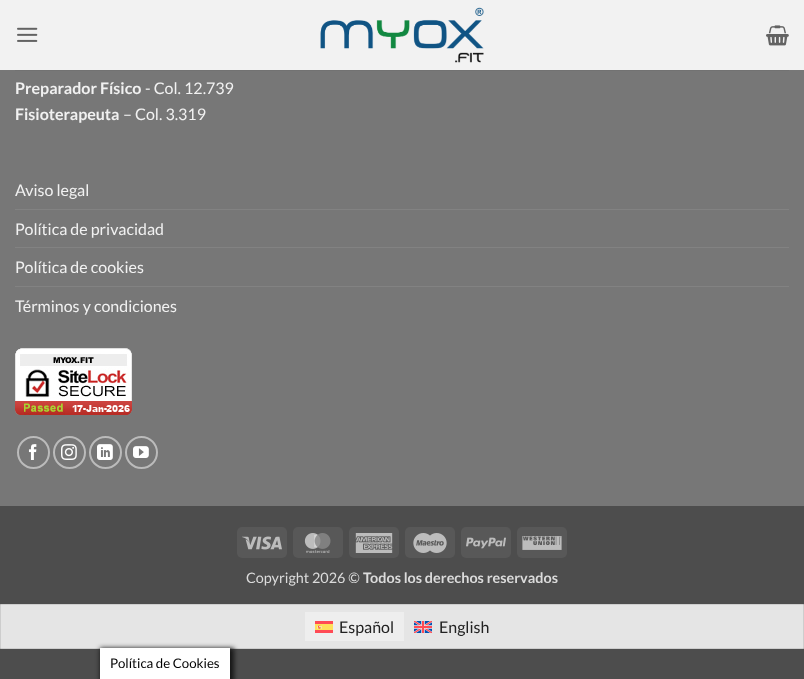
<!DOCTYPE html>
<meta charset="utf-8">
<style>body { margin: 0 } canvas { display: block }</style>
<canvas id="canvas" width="804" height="679"></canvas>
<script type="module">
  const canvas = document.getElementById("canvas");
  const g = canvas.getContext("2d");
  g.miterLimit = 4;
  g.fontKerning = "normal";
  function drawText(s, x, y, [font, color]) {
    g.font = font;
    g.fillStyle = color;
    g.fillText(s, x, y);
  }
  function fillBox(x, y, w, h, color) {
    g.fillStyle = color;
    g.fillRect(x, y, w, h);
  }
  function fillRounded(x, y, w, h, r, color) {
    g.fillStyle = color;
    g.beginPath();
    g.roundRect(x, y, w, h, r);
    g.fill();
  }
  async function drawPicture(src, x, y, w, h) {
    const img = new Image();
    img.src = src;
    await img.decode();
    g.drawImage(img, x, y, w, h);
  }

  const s1 = ["bold 16px Lato", "#F1F1F1"];
  const s2 = ["16px Lato", "#F1F1F1"];
  const s3 = ["14.4px Lato", "#DBDBDB"];
  const s4 = ["bold 14.4px Lato", "#DBDBDB"];
  const s5 = ["16px Lato", "#222222"];
  const s6 = ["13.25px Lato", "#000000"];

  fillBox(0, 0, 804, 679, "#4D4D4D");
  fillBox(0, 0, 804, 506, "#777777");
  fillBox(0, 0, 804, 70, "rgba(255, 255, 255, 0.9)");
  await drawPicture("pic1.png", 17, 27, 21, 15);
  await drawPicture("pic2.png", 320, 7, 164, 56);
  await drawPicture("pic3.png", 766, 25, 23, 21);
  fillBox(15, 70, 774, 1, "rgba(74, 74, 74, 0.1)");
  drawText("Preparador Físico", 15, 94, s1);
  drawText("- Col. 12.739", 145, 94, s2);
  drawText("Fisioterapeuta", 15, 120, s1);
  drawText("– Col. 3.319", 123, 120, s2);
  drawText("Aviso legal", 15, 196, s2);
  fillBox(15, 209, 774, 1, "#828282");
  drawText("Política de privacidad", 15, 235, s2);
  fillBox(15, 247, 774, 1, "#828282");
  drawText("Política de cookies", 15, 273, s2);
  fillBox(15, 286, 774, 1, "#828282");
  drawText("Términos y condiciones", 15, 312, s2);
  await drawPicture("pic4.png", 15, 348, 117, 67);
  g.beginPath();
  g.arc(33.5, 452.5, 15.5, 0, Math.PI * 2);
  g.strokeStyle = "#BBBBBB";
  g.lineWidth = 2;
  g.stroke();
  await drawPicture("pic5.png", 28, 444, 9, 16);
  g.beginPath();
  g.arc(69.5, 452.5, 15.5, 0, Math.PI * 2);
  g.stroke();
  await drawPicture("pic6.png", 61, 444, 16, 16);
  g.beginPath();
  g.arc(105.5, 452.5, 15.5, 0, Math.PI * 2);
  g.stroke();
  await drawPicture("pic7.png", 97, 444, 16, 16);
  g.beginPath();
  g.arc(141.5, 452.5, 15.5, 0, Math.PI * 2);
  g.stroke();
  await drawPicture("pic8.png", 133, 446, 16, 12);
  fillRounded(237, 527, 50, 31, 5, "#585858");
  await drawPicture("pic9.png", 242, 536, 40, 14);
  fillRounded(293, 527, 50, 31, 5, "#585858");
  await drawPicture("pic10.png", 304, 533, 27, 20);
  fillRounded(349, 527, 50, 31, 5, "#585858");
  await drawPicture("pic11.png", 355, 533, 38, 20);
  fillRounded(405, 527, 50, 31, 5, "#585858");
  await drawPicture("pic12.png", 413, 533, 34, 20);
  fillRounded(461, 527, 50, 31, 5, "#585858");
  await drawPicture("pic13.png", 466, 537, 40, 12);
  fillRounded(517, 527, 50, 31, 5, "#585858");
  await drawPicture("pic14.png", 522, 536, 40, 14);
  drawText("Copyright 2026 ©", 246, 583, s3);
  drawText("Todos los derechos reservados", 363, 583, s4);
  g.fillStyle = "#E5E5E5";
  g.beginPath();
  g.rect(0.5, 604.5, 803, 44);
  g.fill();
  g.strokeStyle = "#CDCDCD";
  g.lineWidth = 1;
  g.stroke();
  fillBox(305, 612, 99, 29, "#EEEEEE");
  await drawPicture("pic15.png", 315, 621, 18, 12);
  drawText("Español", 339, 633, s5);
  await drawPicture("pic16.png", 414, 621, 18, 12);
  drawText("English", 439, 633, s5);
  g.fillStyle = "#161616";
  g.filter = "blur(2.5px)";
  g.beginPath();
  g.rect(100, 648, 134, 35);
  g.fill();
  g.filter = "none";
  fillBox(100, 648, 130, 31, "#FFFFFF");
  drawText("Política de Cookies", 110, 668, s6);
</script>
